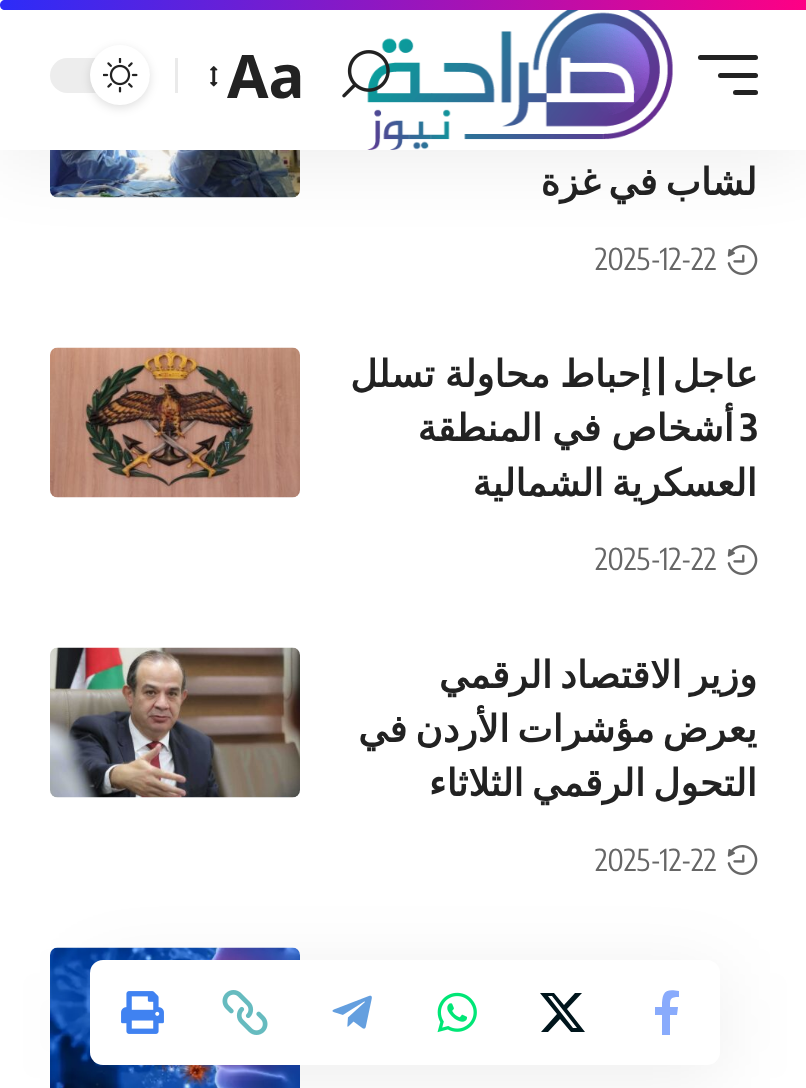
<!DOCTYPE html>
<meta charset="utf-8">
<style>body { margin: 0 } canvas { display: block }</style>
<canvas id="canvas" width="806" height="1088"></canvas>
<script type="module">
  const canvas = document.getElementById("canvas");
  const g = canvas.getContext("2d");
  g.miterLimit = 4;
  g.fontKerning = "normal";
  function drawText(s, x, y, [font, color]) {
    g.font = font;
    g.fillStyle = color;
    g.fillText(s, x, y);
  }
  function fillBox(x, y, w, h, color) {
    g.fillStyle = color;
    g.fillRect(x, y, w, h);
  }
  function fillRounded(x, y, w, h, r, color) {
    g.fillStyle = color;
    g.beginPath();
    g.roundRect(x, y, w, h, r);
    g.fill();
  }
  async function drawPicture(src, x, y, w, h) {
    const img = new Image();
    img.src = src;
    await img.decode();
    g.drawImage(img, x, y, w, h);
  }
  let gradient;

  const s1 = ["bold 60px Noto Sans", "#222222"];
  const s2 = ["bold 37.5px DejaVu Sans", "#222222"];
  const s3 = ["30px Encode Sans Condensed", "#666666"];
  const s4 = ["bold 37.5px Encode Sans Condensed", "#222222"];

  fillBox(0, 0, 806, 1088, "#FFFFFF");
  await drawPicture("pic5.png", 727, 245, 31, 30);
  await drawPicture("pic6.png", 50, 150, 250, 48);
  g.fillStyle = "rgba(0, 0, 0, 0.07)";
  g.filter = "blur(37.5px)";
  g.beginPath();
  g.rect(0, 10, 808, 150);
  g.fill();
  g.filter = "none";
  fillBox(0, 0, 806, 150, "#FFFFFF");
  gradient = g.createLinearGradient(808, 5, 0, 5);
  gradient.addColorStop(0, "#FF0084");
  gradient.addColorStop(1, "#2C2CF8");
  g.fillStyle = gradient;
  g.beginPath();
  g.moveTo(5, 0);
  g.lineTo(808, 0);
  g.lineTo(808, 10);
  g.lineTo(5, 10);
  g.bezierCurveTo(2, 10, 0, 8, 0, 5);
  g.bezierCurveTo(0, 2, 2, 0, 5, 0);
  g.closePath();
  g.fill();
  fillRounded(698, 55, 60, 5, 2.5, "#222222");
  fillRounded(718, 73, 40, 5, 2.5, "#222222");
  fillRounded(733, 90, 25, 5, 2.5, "#222222");
  await drawPicture("pic1.png", 367, 10, 306, 140);
  await drawPicture("pic2.png", 342, 50, 48, 48);
  drawText("Aa", 227, 98, s1);
  await drawPicture("pic3.png", 210, 66, 8, 21);
  fillBox(175, 58, 3, 35, "#EAEAEA");
  fillRounded(50, 58, 100, 35, 17.5, "#EDEDED");
  g.fillStyle = "rgba(0, 0, 0, 0.12)";
  g.filter = "blur(5px)";
  g.beginPath();
  g.roundRect(90, 48, 60, 60, 30);
  g.fill();
  g.filter = "none";
  g.fillStyle = "#FFFFFF";
  g.beginPath();
  g.arc(120, 75, 30, 0, Math.PI * 2);
  g.fill();
  await drawPicture("pic4.png", 103, 58, 35, 35);
  g.wordSpacing = "-4px";
  g.direction = "rtl";
  drawText("لشاب في غزة", 757, 195, s2);
  g.wordSpacing = "0px";
  g.direction = "ltr";
  drawText("2025-12-22", 595, 270, s3);
  g.direction = "rtl";
  drawText("عاجل", 758, 387, s2);
  drawText("|", 666, 387, s4);
  g.wordSpacing = "-2px";
  drawText("إحباط محاولة تسلل", 651, 387, s2);
  g.wordSpacing = "0px";
  g.direction = "ltr";
  drawText("3", 740, 441, s4);
  g.wordSpacing = "-2px";
  g.direction = "rtl";
  drawText("أشخاص في المنطقة", 734, 441, s2);
  g.wordSpacing = "-4px";
  drawText("العسكرية الشمالية", 757, 496, s2);
  await drawPicture("pic5.png", 727, 545, 31, 30);
  g.wordSpacing = "0px";
  g.direction = "ltr";
  drawText("2025-12-22", 595, 570, s3);
  await drawPicture("pic7.png", 50, 347, 250, 151);
  g.wordSpacing = "-4px";
  g.direction = "rtl";
  drawText("وزير الاقتصاد الرقمي", 757, 688, s2);
  drawText("يعرض مؤشرات الأردن في", 757, 742, s2);
  drawText("التحول الرقمي الثلاثاء", 757, 796, s2);
  await drawPicture("pic5.png", 727, 845, 31, 30);
  g.wordSpacing = "0px";
  g.direction = "ltr";
  drawText("2025-12-22", 595, 871, s3);
  await drawPicture("pic8.png", 50, 647, 250, 151);
  await drawPicture("pic9.png", 50, 947, 250, 141);
  g.fillStyle = "rgba(0, 0, 0, 0.07)";
  g.filter = "blur(37.5px)";
  g.beginPath();
  g.roundRect(90, 973, 630, 105, 13);
  g.fill();
  g.filter = "none";
  fillRounded(90, 960, 630, 105, 13, "#FFFFFF");
  g.fillStyle = "#89ABFC";
  g.beginPath();
  g.moveTo(677, 1015);
  g.lineTo(678, 1007);
  g.lineTo(670, 1007);
  g.bezierCurveTo(670, 999, 670, 997, 679, 997);
  g.lineTo(679, 991);
  g.bezierCurveTo(664, 988, 662, 993, 662, 1007);
  g.lineTo(655, 1007);
  g.lineTo(655, 1015);
  g.lineTo(662, 1015);
  g.lineTo(662, 1035);
  g.lineTo(670, 1035);
  g.lineTo(670, 1015);
  g.closePath();
  g.fill();
  g.fillStyle = "#00151C";
  g.beginPath();
  g.moveTo(575, 993);
  g.lineTo(582, 993);
  g.lineTo(567, 1009);
  g.lineTo(585, 1032);
  g.lineTo(571, 1032);
  g.lineTo(560, 1019);
  g.lineTo(548, 1032);
  g.lineTo(541, 1032);
  g.lineTo(557, 1014);
  g.lineTo(540, 993);
  g.lineTo(554, 993);
  g.lineTo(564, 1005);
  g.closePath();
  g.moveTo(573, 1028);
  g.lineTo(577, 1028);
  g.lineTo(552, 996);
  g.lineTo(548, 996);
  g.closePath();
  g.fill();
  await drawPicture("pic10.png", 437, 992, 40, 41);
  await drawPicture("pic11.png", 332, 995, 40, 34);
  await drawPicture("pic12.png", 222, 990, 46, 45);
  await drawPicture("pic13.png", 121, 991, 43, 43);
</script>
